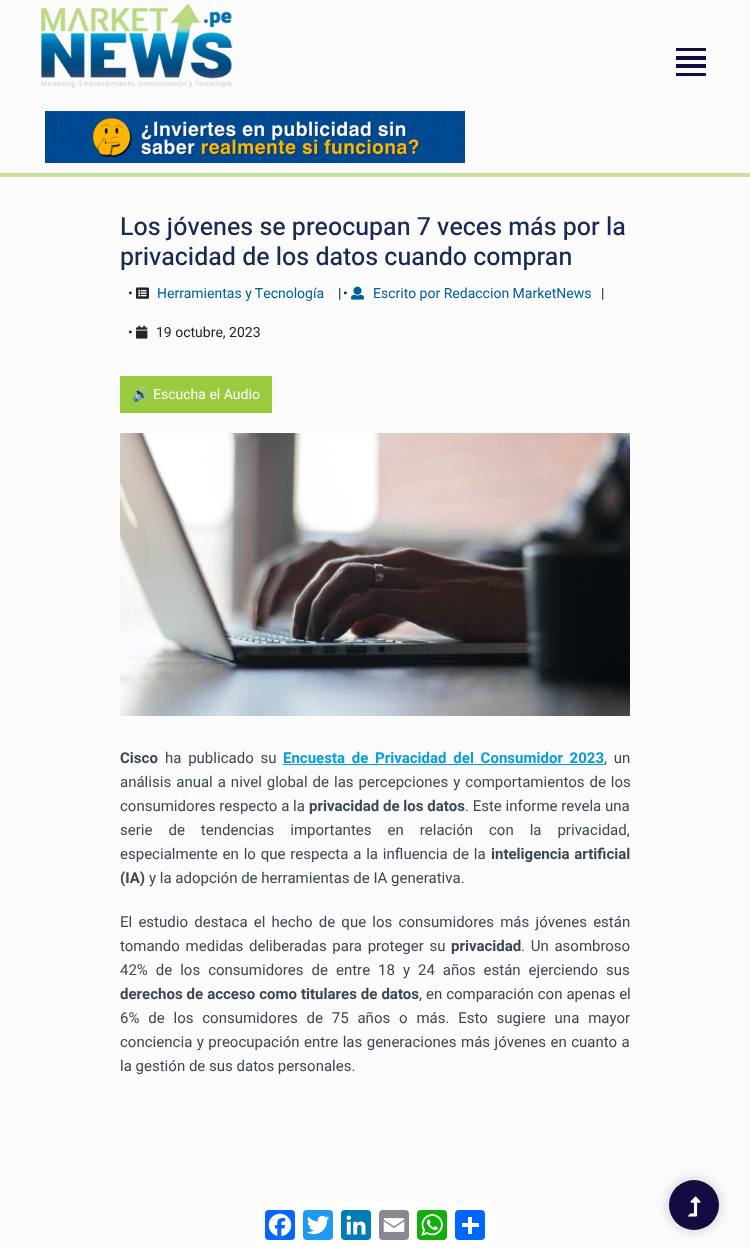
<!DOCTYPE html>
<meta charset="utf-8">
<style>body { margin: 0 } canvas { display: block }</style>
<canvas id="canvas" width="750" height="1248"></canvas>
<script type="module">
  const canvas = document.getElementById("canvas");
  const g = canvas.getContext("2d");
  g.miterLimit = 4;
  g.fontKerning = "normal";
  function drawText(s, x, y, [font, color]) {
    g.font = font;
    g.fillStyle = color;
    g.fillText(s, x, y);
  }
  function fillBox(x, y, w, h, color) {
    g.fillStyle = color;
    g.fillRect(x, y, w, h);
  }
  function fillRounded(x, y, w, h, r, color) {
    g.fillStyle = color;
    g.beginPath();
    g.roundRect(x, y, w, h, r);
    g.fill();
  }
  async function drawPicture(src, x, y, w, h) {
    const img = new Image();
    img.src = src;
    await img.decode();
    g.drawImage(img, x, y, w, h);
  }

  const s1 = ["500 25px Heebo", "#172A54"];
  const s2 = ["14px Heebo", "#212529"];
  const s3 = ["14px Heebo", "#006098"];
  const s4 = ["14px Noto Color Emoji", "#FFFFFF"];
  const s5 = ["14px Heebo", "#FFFFFF"];
  const s6 = ["bold 15px Heebo", "#3B4855"];
  const s7 = ["15px Heebo", "#3B4855"];
  const s8 = ["bold 15px Heebo", "#079FDA"];

  fillBox(0, 0, 750, 1248, "#FBFBFB");
  await drawPicture("pic1.png", 41, 3, 192, 85);
  fillBox(676, 48, 30, 3, "#140C40");
  fillBox(676, 56, 30, 4, "#140C40");
  fillBox(676, 64, 30, 4, "#140C40");
  fillBox(676, 73, 30, 3, "#140C40");
  await drawPicture("pic2.png", 45, 111, 420, 52);
  fillBox(0, 173, 750, 4, "#C8E098");
  drawText("Los jóvenes se preocupan 7 veces más por la", 120, 235, s1);
  drawText("privacidad de los datos cuando compran", 120, 265, s1);
  drawText("•", 128, 298, s2);
  await drawPicture("pic3.png", 136, 287, 13, 12);
  drawText("Herramientas y Tecnología", 157, 298, s3);
  drawText("|", 338, 298, s2);
  drawText("•", 343, 298, s2);
  await drawPicture("pic4.png", 351, 286, 13, 14);
  drawText("Escrito por Redaccion MarketNews", 373, 298, s3);
  drawText("|", 601, 298, s2);
  drawText("•", 128, 337, s2);
  await drawPicture("pic5.png", 136, 325, 12, 14);
  drawText("19 octubre, 2023", 156, 337, s2);
  fillBox(120, 376, 152, 37, "#9ACA3D");
  drawText("🔊", 132, 399, s4);
  drawText("Escucha el Audio", 153, 399, s5);
  await drawPicture("pic6.png", 120, 433, 510, 283);
  drawText("Cisco", 120, 763, s6);
  g.wordSpacing = "3px";
  drawText("ha publicado su", 165, 763, s7);
  drawText("Encuesta de Privacidad del Consumidor 2023", 283, 763, s8);
  fillBox(283, 764, 321, 1, "#079FDA");
  drawText(", un", 604, 763, s7);
  g.wordSpacing = "1.25px";
  drawText("análisis anual a nivel global de las percepciones y comportamientos de los", 120, 787, s7);
  g.wordSpacing = "0px";
  drawText("consumidores respecto a la", 120, 811, s7);
  drawText("privacidad de los datos", 309, 811, s6);
  drawText(". Este informe revela una", 465, 811, s7);
  g.wordSpacing = "12.25px";
  drawText("serie de tendencias importantes en relación con la privacidad,", 120, 835, s7);
  g.wordSpacing = "1.1px";
  drawText("especialmente en lo que respecta a la influencia de la", 120, 859, s7);
  g.wordSpacing = "1px";
  drawText("inteligencia artificial", 491, 859, s6);
  g.wordSpacing = "0px";
  drawText("(IA)", 120, 883, s6);
  drawText("y la adopción de herramientas de IA generativa.", 149, 883, s7);
  g.wordSpacing = "2.5px";
  drawText("El estudio destaca el hecho de que los consumidores más jóvenes están", 120, 927, s7);
  g.wordSpacing = "2px";
  drawText("tomando medidas deliberadas para proteger su", 120, 951, s7);
  g.wordSpacing = "0px";
  drawText("privacidad", 451, 951, s6);
  g.wordSpacing = "2px";
  drawText(". Un asombroso", 521, 951, s7);
  g.wordSpacing = "4.25px";
  drawText("42% de los consumidores de entre 18 y 24 años están ejerciendo sus", 120, 975, s7);
  g.wordSpacing = "0.25px";
  drawText("derechos de acceso como titulares de datos", 120, 999, s6);
  drawText(", en comparación con apenas el", 419, 999, s7);
  g.wordSpacing = "5.1px";
  drawText("6% de los consumidores de 75 años o más. Esto sugiere una mayor", 120, 1023, s7);
  g.wordSpacing = "0.75px";
  drawText("conciencia y preocupación entre las generaciones más jóvenes en cuanto a", 120, 1047, s7);
  g.wordSpacing = "0px";
  drawText("la gestión de sus datos personales.", 120, 1071, s7);
  fillRounded(257, 1202, 236, 46, 6, "#FFFFFF");
  fillRounded(265, 1210, 30, 30, 4, "#0866FF");
  await drawPicture("pic7.png", 268, 1213, 24, 24);
  fillRounded(303, 1210, 30, 30, 4, "#1D9BF0");
  await drawPicture("pic8.png", 307, 1215, 23, 20);
  fillRounded(341, 1210, 30, 30, 4, "#007BB5");
  await drawPicture("pic9.png", 346, 1215, 20, 20);
  fillRounded(379, 1210, 30, 30, 4, "#888990");
  await drawPicture("pic10.png", 383, 1218, 22, 14);
  fillRounded(417, 1210, 30, 30, 4, "#12AF0A");
  await drawPicture("pic11.png", 421, 1214, 22, 22);
  fillRounded(455, 1210, 30, 30, 4, "#0166FF");
  fillBox(468, 1217, 4, 17, "#FFFFFF");
  fillBox(462, 1223, 17, 4, "#FFFFFF");
  g.fillStyle = "rgba(108, 98, 98, 0.2)";
  g.filter = "blur(5px)";
  g.beginPath();
  g.roundRect(666, 1177, 56, 56, 28);
  g.fill();
  g.filter = "none";
  g.fillStyle = "#140C40";
  g.beginPath();
  g.arc(694, 1205, 25, 0, Math.PI * 2);
  g.fill();
  await drawPicture("pic12.png", 688, 1196, 13, 21);
</script>
